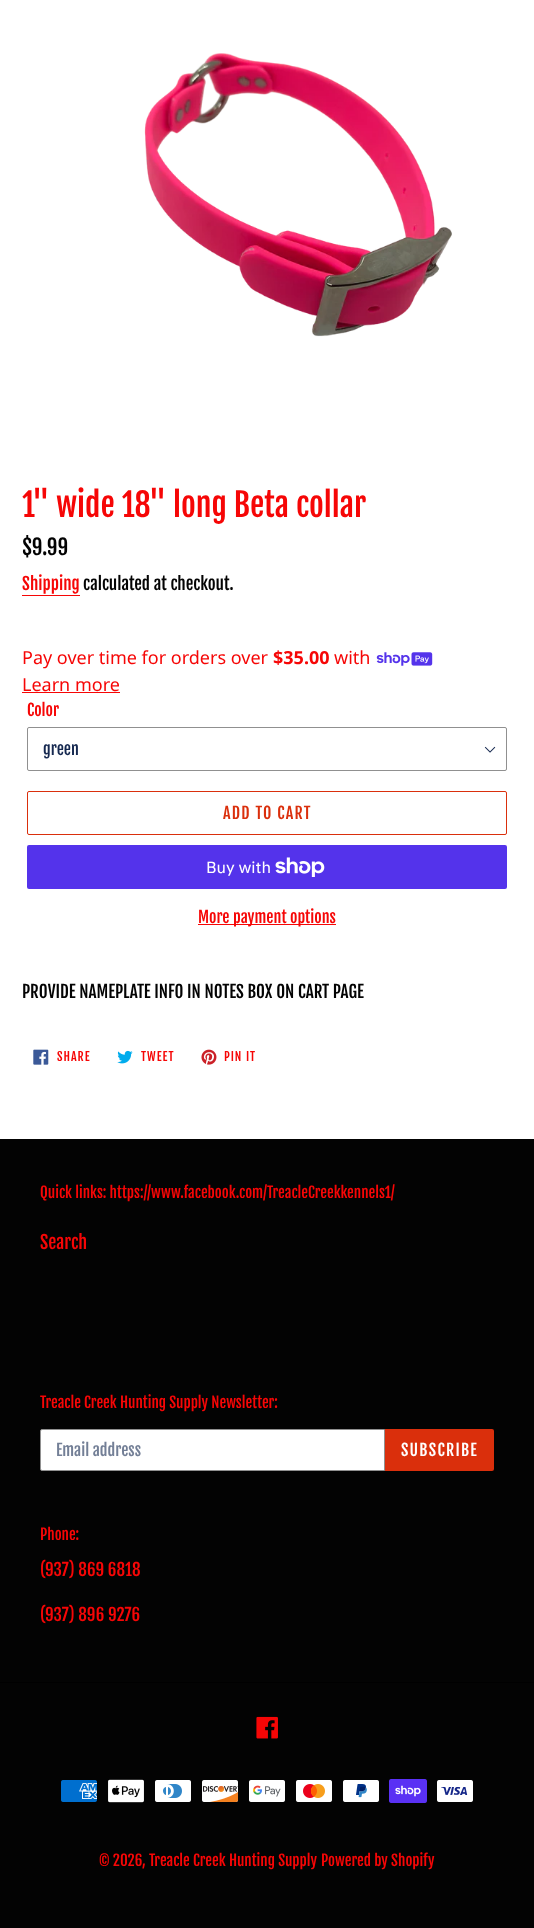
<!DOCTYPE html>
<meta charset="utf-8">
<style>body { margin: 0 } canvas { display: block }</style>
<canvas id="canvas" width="534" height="1928"></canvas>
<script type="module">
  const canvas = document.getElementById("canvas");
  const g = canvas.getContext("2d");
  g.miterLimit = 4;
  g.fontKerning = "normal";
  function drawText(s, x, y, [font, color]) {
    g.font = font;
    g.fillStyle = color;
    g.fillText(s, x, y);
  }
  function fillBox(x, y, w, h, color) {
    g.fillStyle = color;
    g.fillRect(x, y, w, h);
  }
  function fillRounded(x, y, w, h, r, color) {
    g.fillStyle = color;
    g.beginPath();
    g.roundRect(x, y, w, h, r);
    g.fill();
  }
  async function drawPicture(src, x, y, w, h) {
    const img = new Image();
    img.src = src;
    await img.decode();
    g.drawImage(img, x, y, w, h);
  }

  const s1 = ["32px Fjalla One", "#F60606"];
  const s2 = ["21px Fjalla One", "#030303"];
  const s3 = ["17px Fjalla One", "#F60606"];
  const s4 = ["17px Fjalla One", "#030303"];
  const s5 = ["18px Noto Sans", "#F60606"];
  const s6 = ["bold 18px Noto Sans", "#F60606"];
  const s7 = ["16px Fjalla One", "#F60606"];
  const s8 = ["16px Fjalla One", "#162950"];
  const s9 = ["16px Fjalla One", "#DA2F0C"];
  const s10 = ["16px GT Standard", "#FFFFFF"];
  const s11 = ["12px Fjalla One", "#F60606"];
  const s12 = ["15px Fjalla One", "#F60606"];
  const s13 = ["18px Fjalla One", "#F60606"];
  const s14 = ["16px Fjalla One", "#737F96"];
  const s15 = ["16px Fjalla One", "#FFFFFF"];

  fillBox(0, 0, 534, 1928, "#FFFFFF");
  await drawPicture("pic1.png", 144, 53, 308, 284);
  drawText("1\" wide 18\" long Beta collar", 22, 517, s1);
  drawText("$9.99", 22, 555, s2);
  drawText("Shipping", 22, 590, s3);
  fillBox(22, 595, 58, 1, "#F60606");
  drawText("calculated at checkout.", 83, 590, s4);
  drawText("Pay over time for orders over", 22, 664, s5);
  drawText("$35.00", 273, 664, s6);
  drawText("with", 334, 664, s5);
  await drawPicture("pic2.png", 376, 652, 57, 14);
  drawText("Learn more", 22, 691, s5);
  fillBox(22, 692, 98, 1, "#F60606");
  drawText("Color", 27, 716, s7);
  await drawPicture("pic3.png", 484, 746, 12, 7);
  g.beginPath();
  g.roundRect(27.5, 727.5, 479, 43, 1.5);
  g.strokeStyle = "#909090";
  g.stroke();
  drawText("green", 43, 755, s8);
  g.beginPath();
  g.roundRect(27.5, 791.5, 479, 43, 1.5);
  g.strokeStyle = "#DA2F0C";
  g.stroke();
  g.letterSpacing = "1.25px";
  drawText("ADD TO CART", 223, 819, s9);
  fillRounded(27, 845, 480, 44, 2, "#5433EB");
  g.letterSpacing = "0px";
  drawText("Buy with", 206, 873, s10);
  await drawPicture("pic4.png", 275, 857, 50, 20);
  fillBox(198, 924, 138, 1, "#F60606");
  drawText("More payment options", 198, 923, s7);
  drawText("PROVIDE NAMEPLATE INFO IN NOTES BOX ON CART PAGE", 22, 998, s4);
  await drawPicture("pic5.png", 33, 1049, 16, 16);
  g.letterSpacing = "1px";
  drawText("SHARE", 57, 1061, s11);
  await drawPicture("pic6.png", 117, 1050, 16, 14);
  drawText("TWEET", 141, 1061, s11);
  await drawPicture("pic7.png", 201, 1049, 16, 16);
  drawText("PIN IT", 224, 1061, s11);
  fillBox(0, 1139, 534, 789, "#030303");
  g.letterSpacing = "0px";
  drawText("Quick links: https://www.facebook.com/TreacleCreekkennels1/", 40, 1198, s12);
  drawText("Search", 40, 1249, s13);
  drawText("Treacle Creek Hunting Supply Newsletter:", 40, 1408, s12);
  g.fillStyle = "#FFFFFF";
  g.beginPath();
  g.roundRect(40.5, 1429.5, 344, 41, [1.5, 0, 0, 1.5]);
  g.fill();
  g.strokeStyle = "#909090";
  g.stroke();
  drawText("Email address", 56, 1456, s14);
  g.fillStyle = "#DA2F0C";
  g.beginPath();
  g.roundRect(385, 1429, 109, 42, [0, 2, 2, 0]);
  g.fill();
  g.letterSpacing = "1.25px";
  drawText("SUBSCRIBE", 401, 1456, s15);
  g.letterSpacing = "0px";
  drawText("Phone:", 40, 1540, s12);
  drawText("(937) 869 6818", 40, 1576, s3);
  drawText("(937) 896 9276", 40, 1621, s3);
  fillBox(0, 1682, 534, 1, "#000000");
  await drawPicture("pic8.png", 256, 1716, 22, 23);
  await drawPicture("pic9.png", 61, 1780, 36, 22);
  await drawPicture("pic10.png", 108, 1779, 36, 24);
  await drawPicture("pic11.png", 155, 1780, 36, 22);
  await drawPicture("pic12.png", 202, 1780, 37, 22);
  await drawPicture("pic13.png", 249, 1780, 36, 22);
  await drawPicture("pic14.png", 296, 1780, 36, 22);
  await drawPicture("pic15.png", 343, 1780, 36, 22);
  await drawPicture("pic16.png", 389, 1779, 38, 24);
  await drawPicture("pic17.png", 437, 1780, 36, 22);
  drawText("© 2026, Treacle Creek Hunting Supply", 99, 1866, s12);
  drawText("Powered by Shopify", 321, 1866, s12);
</script>
